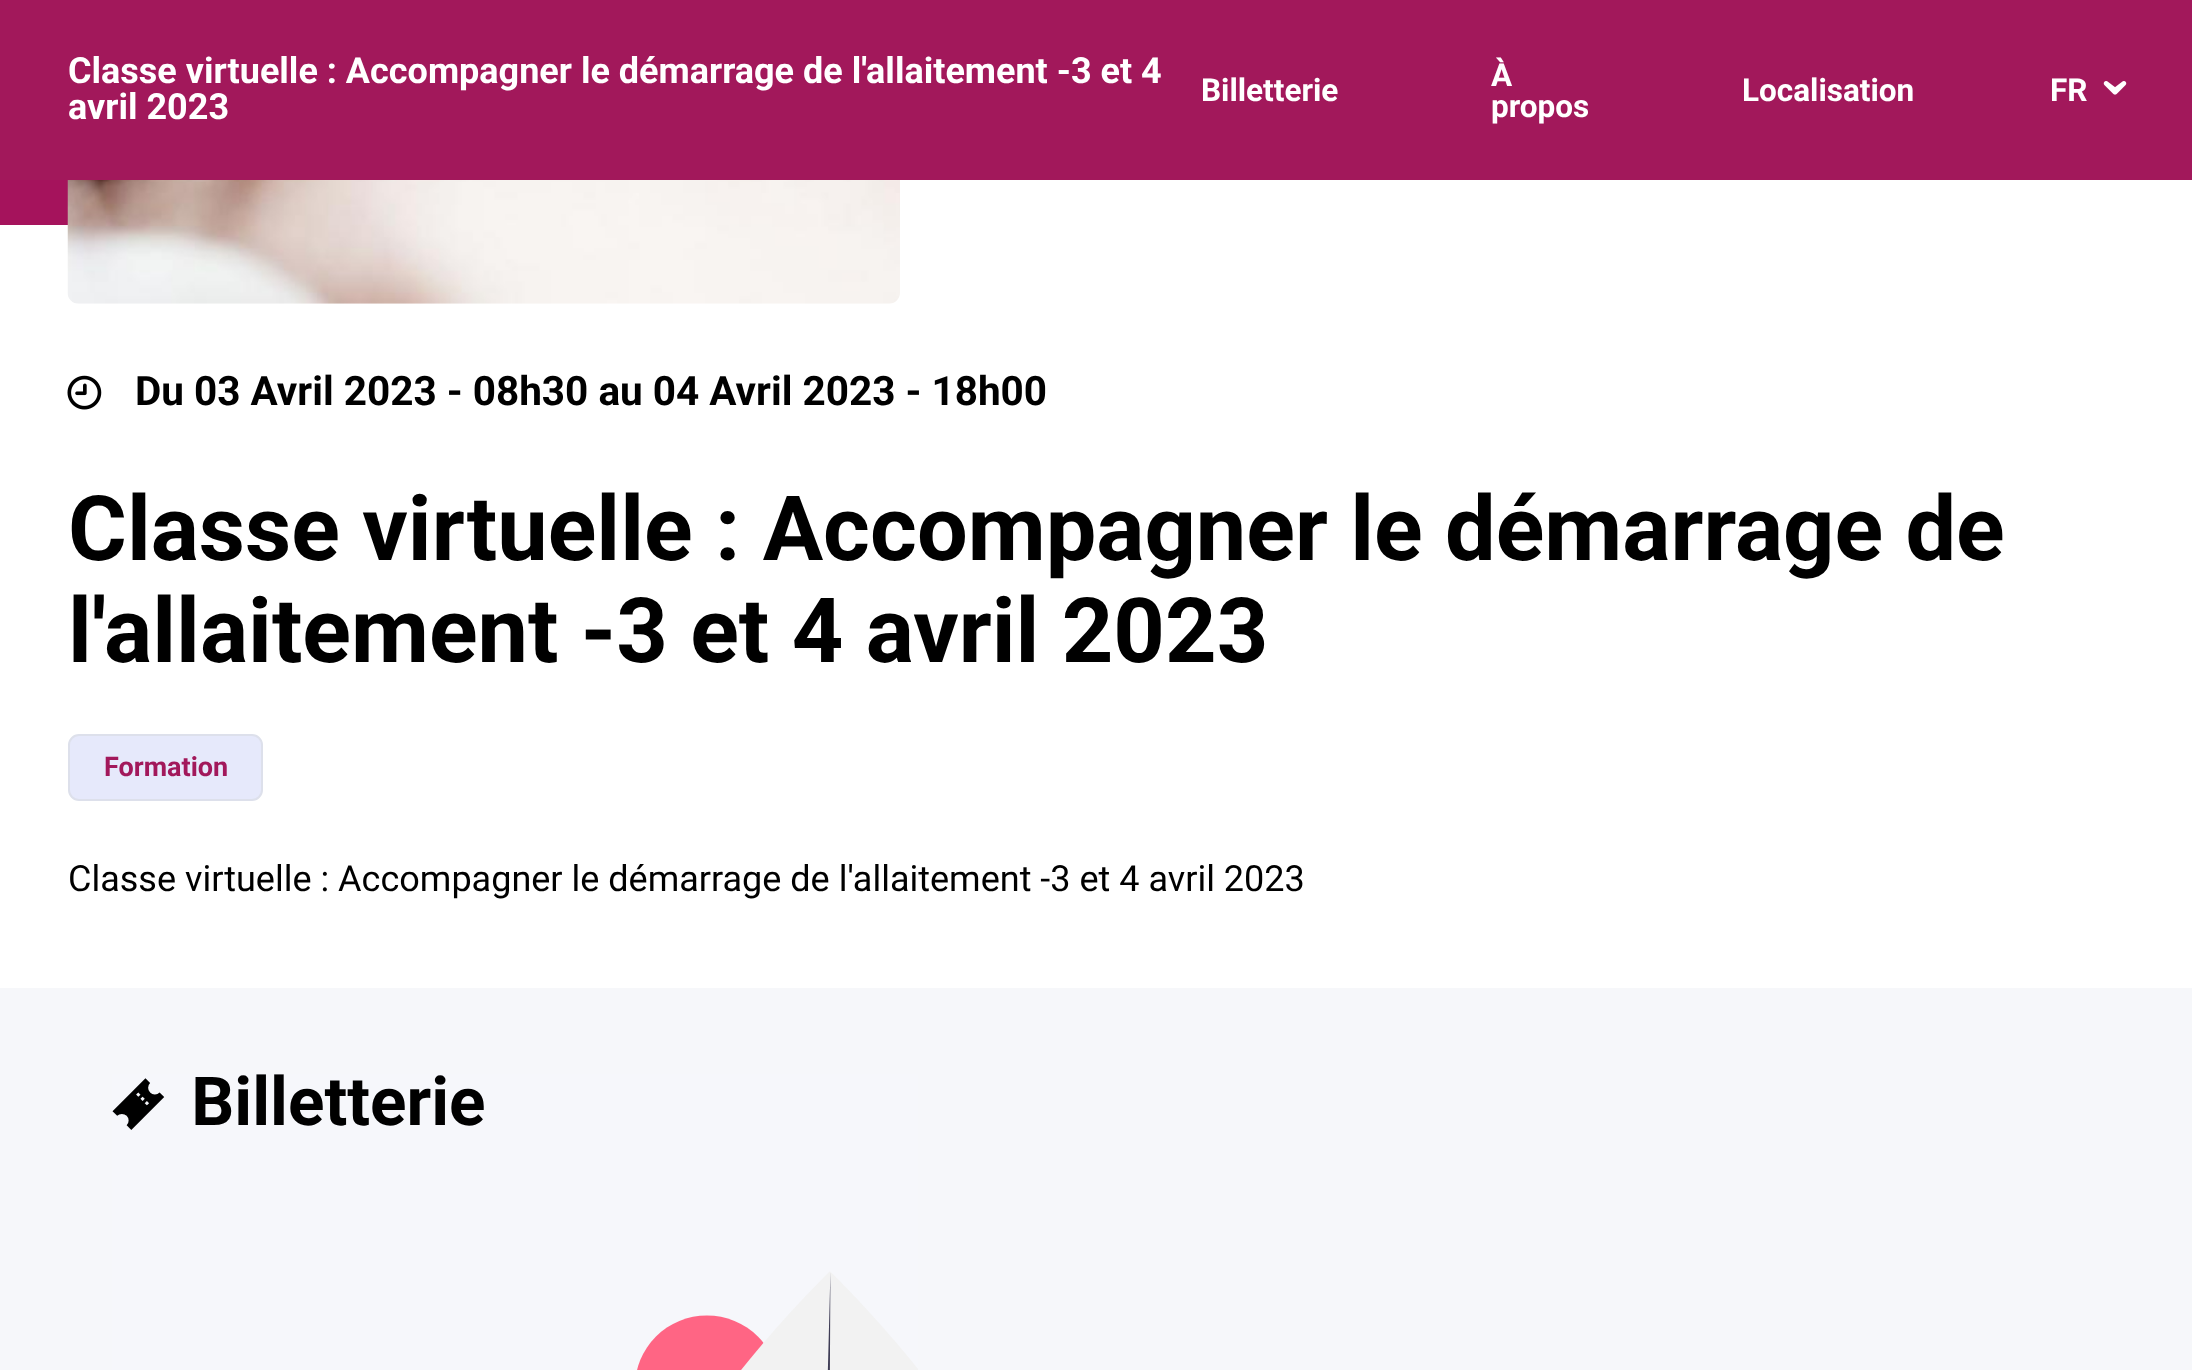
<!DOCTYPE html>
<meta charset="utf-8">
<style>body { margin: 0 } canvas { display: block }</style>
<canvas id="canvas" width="2192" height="1370"></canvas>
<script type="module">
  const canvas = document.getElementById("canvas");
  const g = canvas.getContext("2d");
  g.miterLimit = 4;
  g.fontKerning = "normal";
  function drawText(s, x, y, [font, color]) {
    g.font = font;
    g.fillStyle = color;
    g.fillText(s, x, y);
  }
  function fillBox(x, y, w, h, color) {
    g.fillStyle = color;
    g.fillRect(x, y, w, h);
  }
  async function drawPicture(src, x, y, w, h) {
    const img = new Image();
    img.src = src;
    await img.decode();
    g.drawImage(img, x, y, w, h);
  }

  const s1 = ["bold 36px Roboto", "#FFFFFF"];
  const s2 = ["bold 31.5px Roboto", "#FFFFFF"];
  const s3 = ["bold 40.5px Roboto", "#000000"];
  const s4 = ["bold 90px Roboto", "#000000"];
  const s5 = ["bold 27px Roboto", "#A2185B"];
  const s6 = ["36px Roboto", "#000000"];

  fillBox(0, 0, 2192, 1370, "#F6F7FA");
  fillBox(0, 0, 2192, 180, "#A2185B");
  drawText("Classe virtuelle : Accompagner le démarrage de l'allaitement -3 et 4", 68, 83, s1);
  drawText("avril 2023", 68, 119, s1);
  drawText("Billetterie", 1201, 101, s2);
  drawText("À", 1491, 86, s2);
  drawText("propos", 1491, 117, s2);
  drawText("Localisation", 1742, 101, s2);
  drawText("FR", 2050, 101, s2);
  await drawPicture("pic1.png", 2103, 81, 24, 14);
  fillBox(0, 180, 2192, 808, "#FFFFFF");
  await drawPicture("pic2.png", 0, 180, 68, 45);
  await drawPicture("pic3.png", 67, 180, 833, 124);
  await drawPicture("pic4.png", 67, 375, 35, 35);
  drawText("Du 03 Avril 2023 - 08h30 au 04 Avril 2023 - 18h00", 135, 405, s3);
  drawText("Classe virtuelle : Accompagner le démarrage de", 68, 560, s4);
  drawText("l'allaitement -3 et 4 avril 2023", 68, 662, s4);
  g.fillStyle = "#E6E9FB";
  g.beginPath();
  g.roundRect(69, 735, 193, 65, 10);
  g.fill();
  g.strokeStyle = "#DDE0EB";
  g.lineWidth = 2;
  g.stroke();
  drawText("Formation", 104, 776, s5);
  drawText("Classe virtuelle : Accompagner le démarrage de l'allaitement -3 et 4 avril 2023", 68, 891, s6);
  await drawPicture("pic5.png", 112, 1074, 806, 296);
</script>
